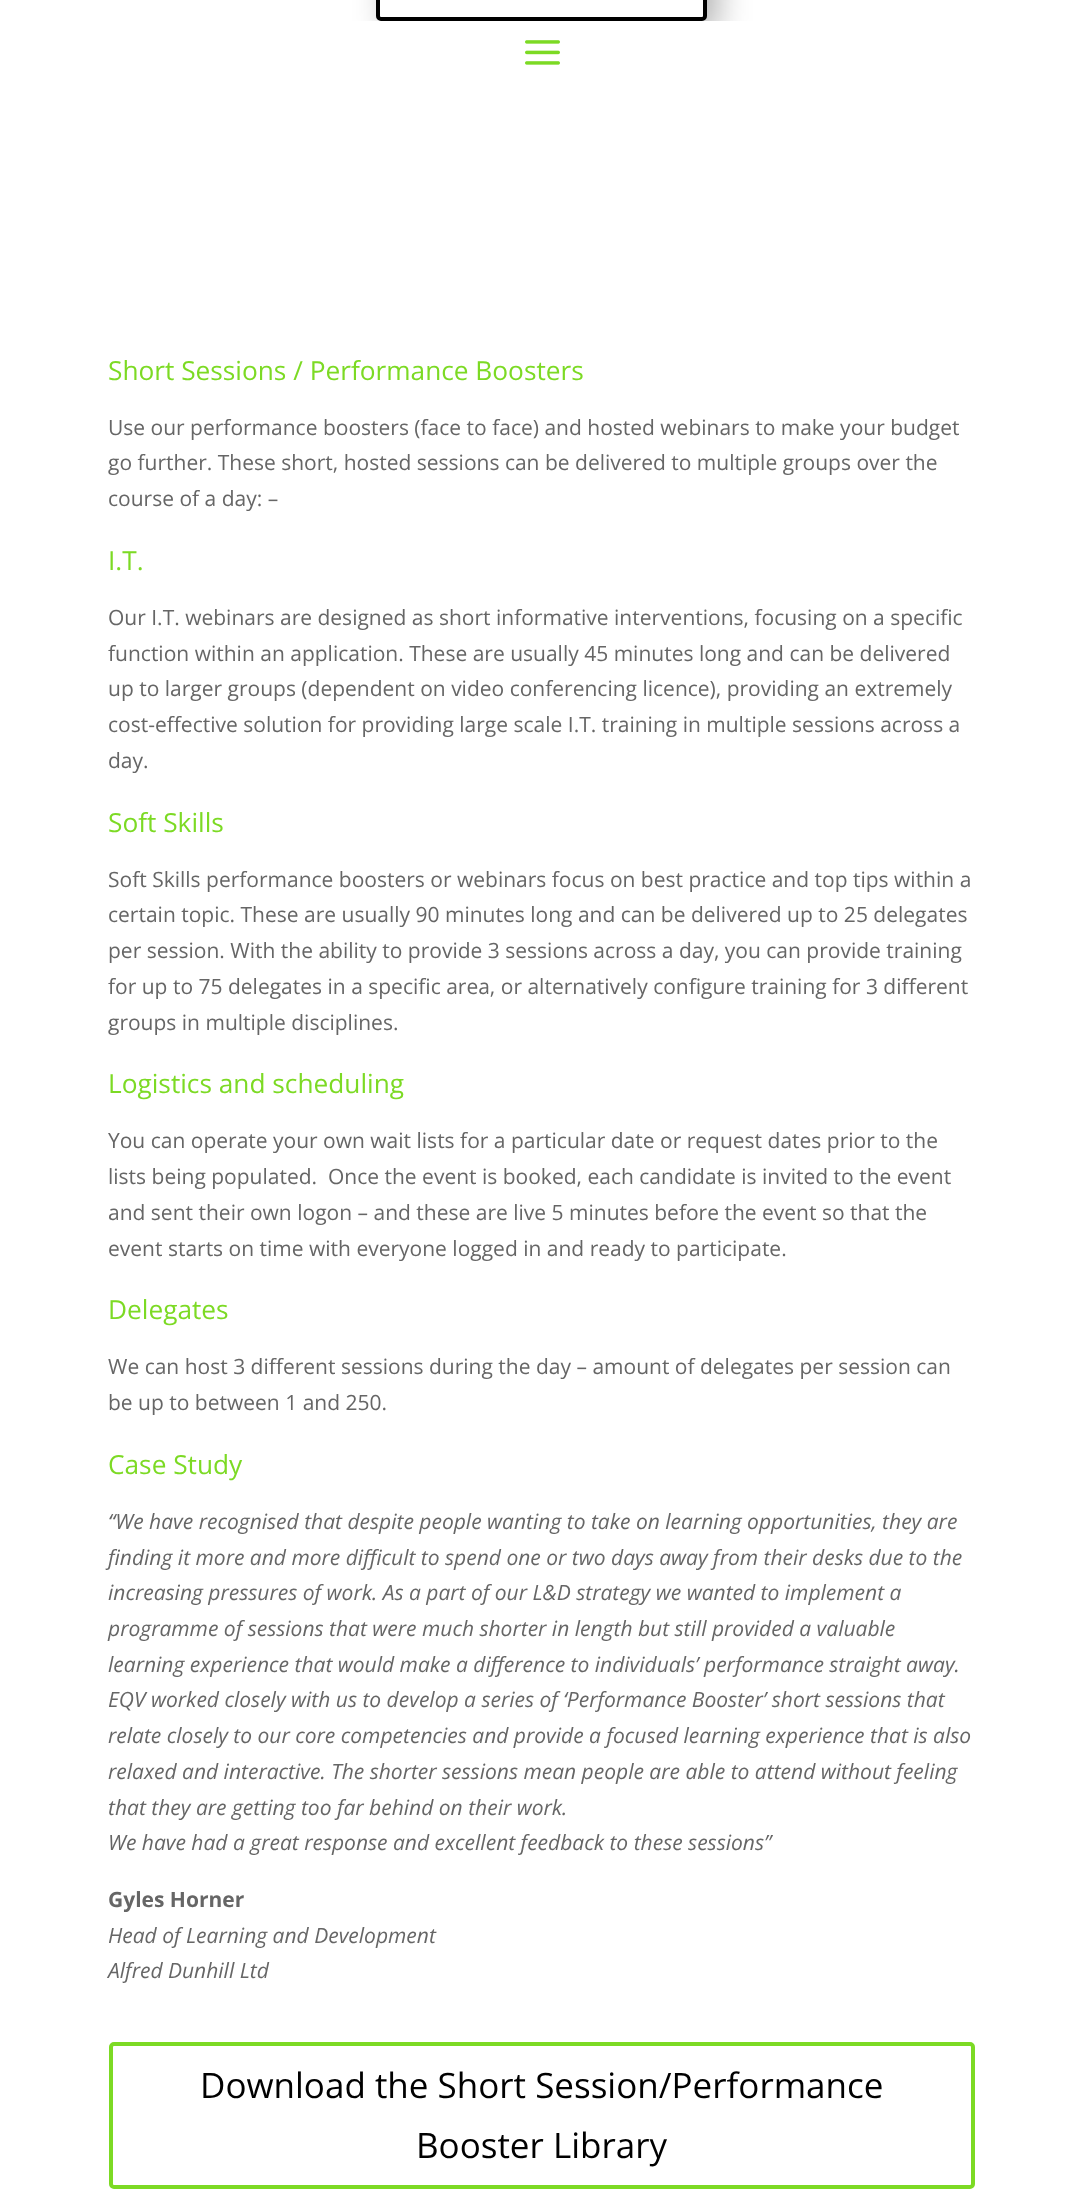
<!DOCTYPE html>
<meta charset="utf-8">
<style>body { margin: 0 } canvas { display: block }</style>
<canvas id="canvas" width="1083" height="2189"></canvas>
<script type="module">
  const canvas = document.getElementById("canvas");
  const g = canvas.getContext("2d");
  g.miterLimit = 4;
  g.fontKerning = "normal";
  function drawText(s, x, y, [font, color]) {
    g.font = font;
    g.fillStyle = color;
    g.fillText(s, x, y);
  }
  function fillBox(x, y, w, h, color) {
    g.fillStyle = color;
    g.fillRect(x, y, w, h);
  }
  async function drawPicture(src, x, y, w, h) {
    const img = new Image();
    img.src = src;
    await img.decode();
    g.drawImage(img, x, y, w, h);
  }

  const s1 = ["26.25px Open Sans", "#7CDA24"];
  const s2 = ["21px Open Sans", "#666666"];
  const s3 = ["italic 21px Open Sans", "#666666"];
  const s4 = ["bold 21px Open Sans", "#666666"];
  const s5 = ["35px Open Sans", "#000000"];

  fillBox(0, 0, 1083, 2189, "#FFFFFF");
  g.fillStyle = "rgba(0, 0, 0, 0.3)";
  g.filter = "blur(16px)";
  g.beginPath();
  g.roundRect(387, -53, 331, 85, 5);
  g.fill();
  g.filter = "none";
  g.fillStyle = "#FFFFFF";
  g.beginPath();
  g.roundRect(378, -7, 327, 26, 3);
  g.fill();
  g.strokeStyle = "#000000";
  g.lineWidth = 4;
  g.stroke();
  g.beginPath();
  g.roundRect(35, 21, 1013, 56, [0, 0, 56, 56]);
  g.fill();
  await drawPicture("pic1.png", 525, 40, 35, 25);
  drawText("Short Sessions / Performance Boosters", 108, 380, s1);
  drawText("Use our performance boosters (face to face) and hosted webinars to make your budget", 108, 435, s2);
  drawText("go further. These short, hosted sessions can be delivered to multiple groups over the", 108, 470, s2);
  drawText("course of a day: –", 108, 506, s2);
  drawText("I.T.", 108, 570, s1);
  drawText("Our I.T. webinars are designed as short informative interventions, focusing on a specific", 108, 625, s2);
  drawText("function within an application. These are usually 45 minutes long and can be delivered", 108, 661, s2);
  drawText("up to larger groups (dependent on video conferencing licence), providing an extremely", 108, 696, s2);
  drawText("cost-effective solution for providing large scale I.T. training in multiple sessions across a", 108, 732, s2);
  drawText("day.", 108, 768, s2);
  drawText("Soft Skills", 108, 832, s1);
  drawText("Soft Skills performance boosters or webinars focus on best practice and top tips within a", 108, 887, s2);
  drawText("certain topic. These are usually 90 minutes long and can be delivered up to 25 delegates", 108, 922, s2);
  drawText("per session. With the ability to provide 3 sessions across a day, you can provide training", 108, 958, s2);
  drawText("for up to 75 delegates in a specific area, or alternatively configure training for 3 different", 108, 994, s2);
  drawText("groups in multiple disciplines.", 108, 1030, s2);
  drawText("Logistics and scheduling", 108, 1093, s1);
  drawText("You can operate your own wait lists for a particular date or request dates prior to the", 108, 1148, s2);
  drawText("lists being populated.  Once the event is booked, each candidate is invited to the event", 108, 1184, s2);
  drawText("and sent their own logon – and these are live 5 minutes before the event so that the", 108, 1220, s2);
  drawText("event starts on time with everyone logged in and ready to participate.", 108, 1256, s2);
  drawText("Delegates", 108, 1319, s1);
  drawText("We can host 3 different sessions during the day – amount of delegates per session can", 108, 1374, s2);
  drawText("be up to between 1 and 250.", 108, 1410, s2);
  drawText("Case Study", 108, 1474, s1);
  drawText("“We have recognised that despite people wanting to take on learning opportunities, they are", 108, 1529, s3);
  drawText("finding it more and more difficult to spend one or two days away from their desks due to the", 108, 1565, s3);
  drawText("increasing pressures of work. As a part of our L&D strategy we wanted to implement a", 108, 1600, s3);
  drawText("programme of sessions that were much shorter in length but still provided a valuable", 108, 1636, s3);
  drawText("learning experience that would make a difference to individuals’ performance straight away.", 108, 1672, s3);
  drawText("EQV worked closely with us to develop a series of ‘Performance Booster’ short sessions that", 108, 1707, s3);
  drawText("relate closely to our core competencies and provide a focused learning experience that is also", 108, 1743, s3);
  drawText("relaxed and interactive. The shorter sessions mean people are able to attend without feeling", 108, 1779, s3);
  drawText("that they are getting too far behind on their work.", 108, 1815, s3);
  drawText("We have had a great response and excellent feedback to these sessions”", 108, 1850, s3);
  drawText("Gyles Horner", 108, 1907, s4);
  drawText("Head of Learning and Development", 108, 1943, s3);
  drawText("Alfred Dunhill Ltd", 108, 1978, s3);
  g.beginPath();
  g.roundRect(111, 2044, 862, 143, 3);
  g.strokeStyle = "#7CDA24";
  g.stroke();
  drawText("Download the Short Session/Performance", 200, 2098, s5);
  drawText("Booster Library", 416, 2158, s5);
</script>
